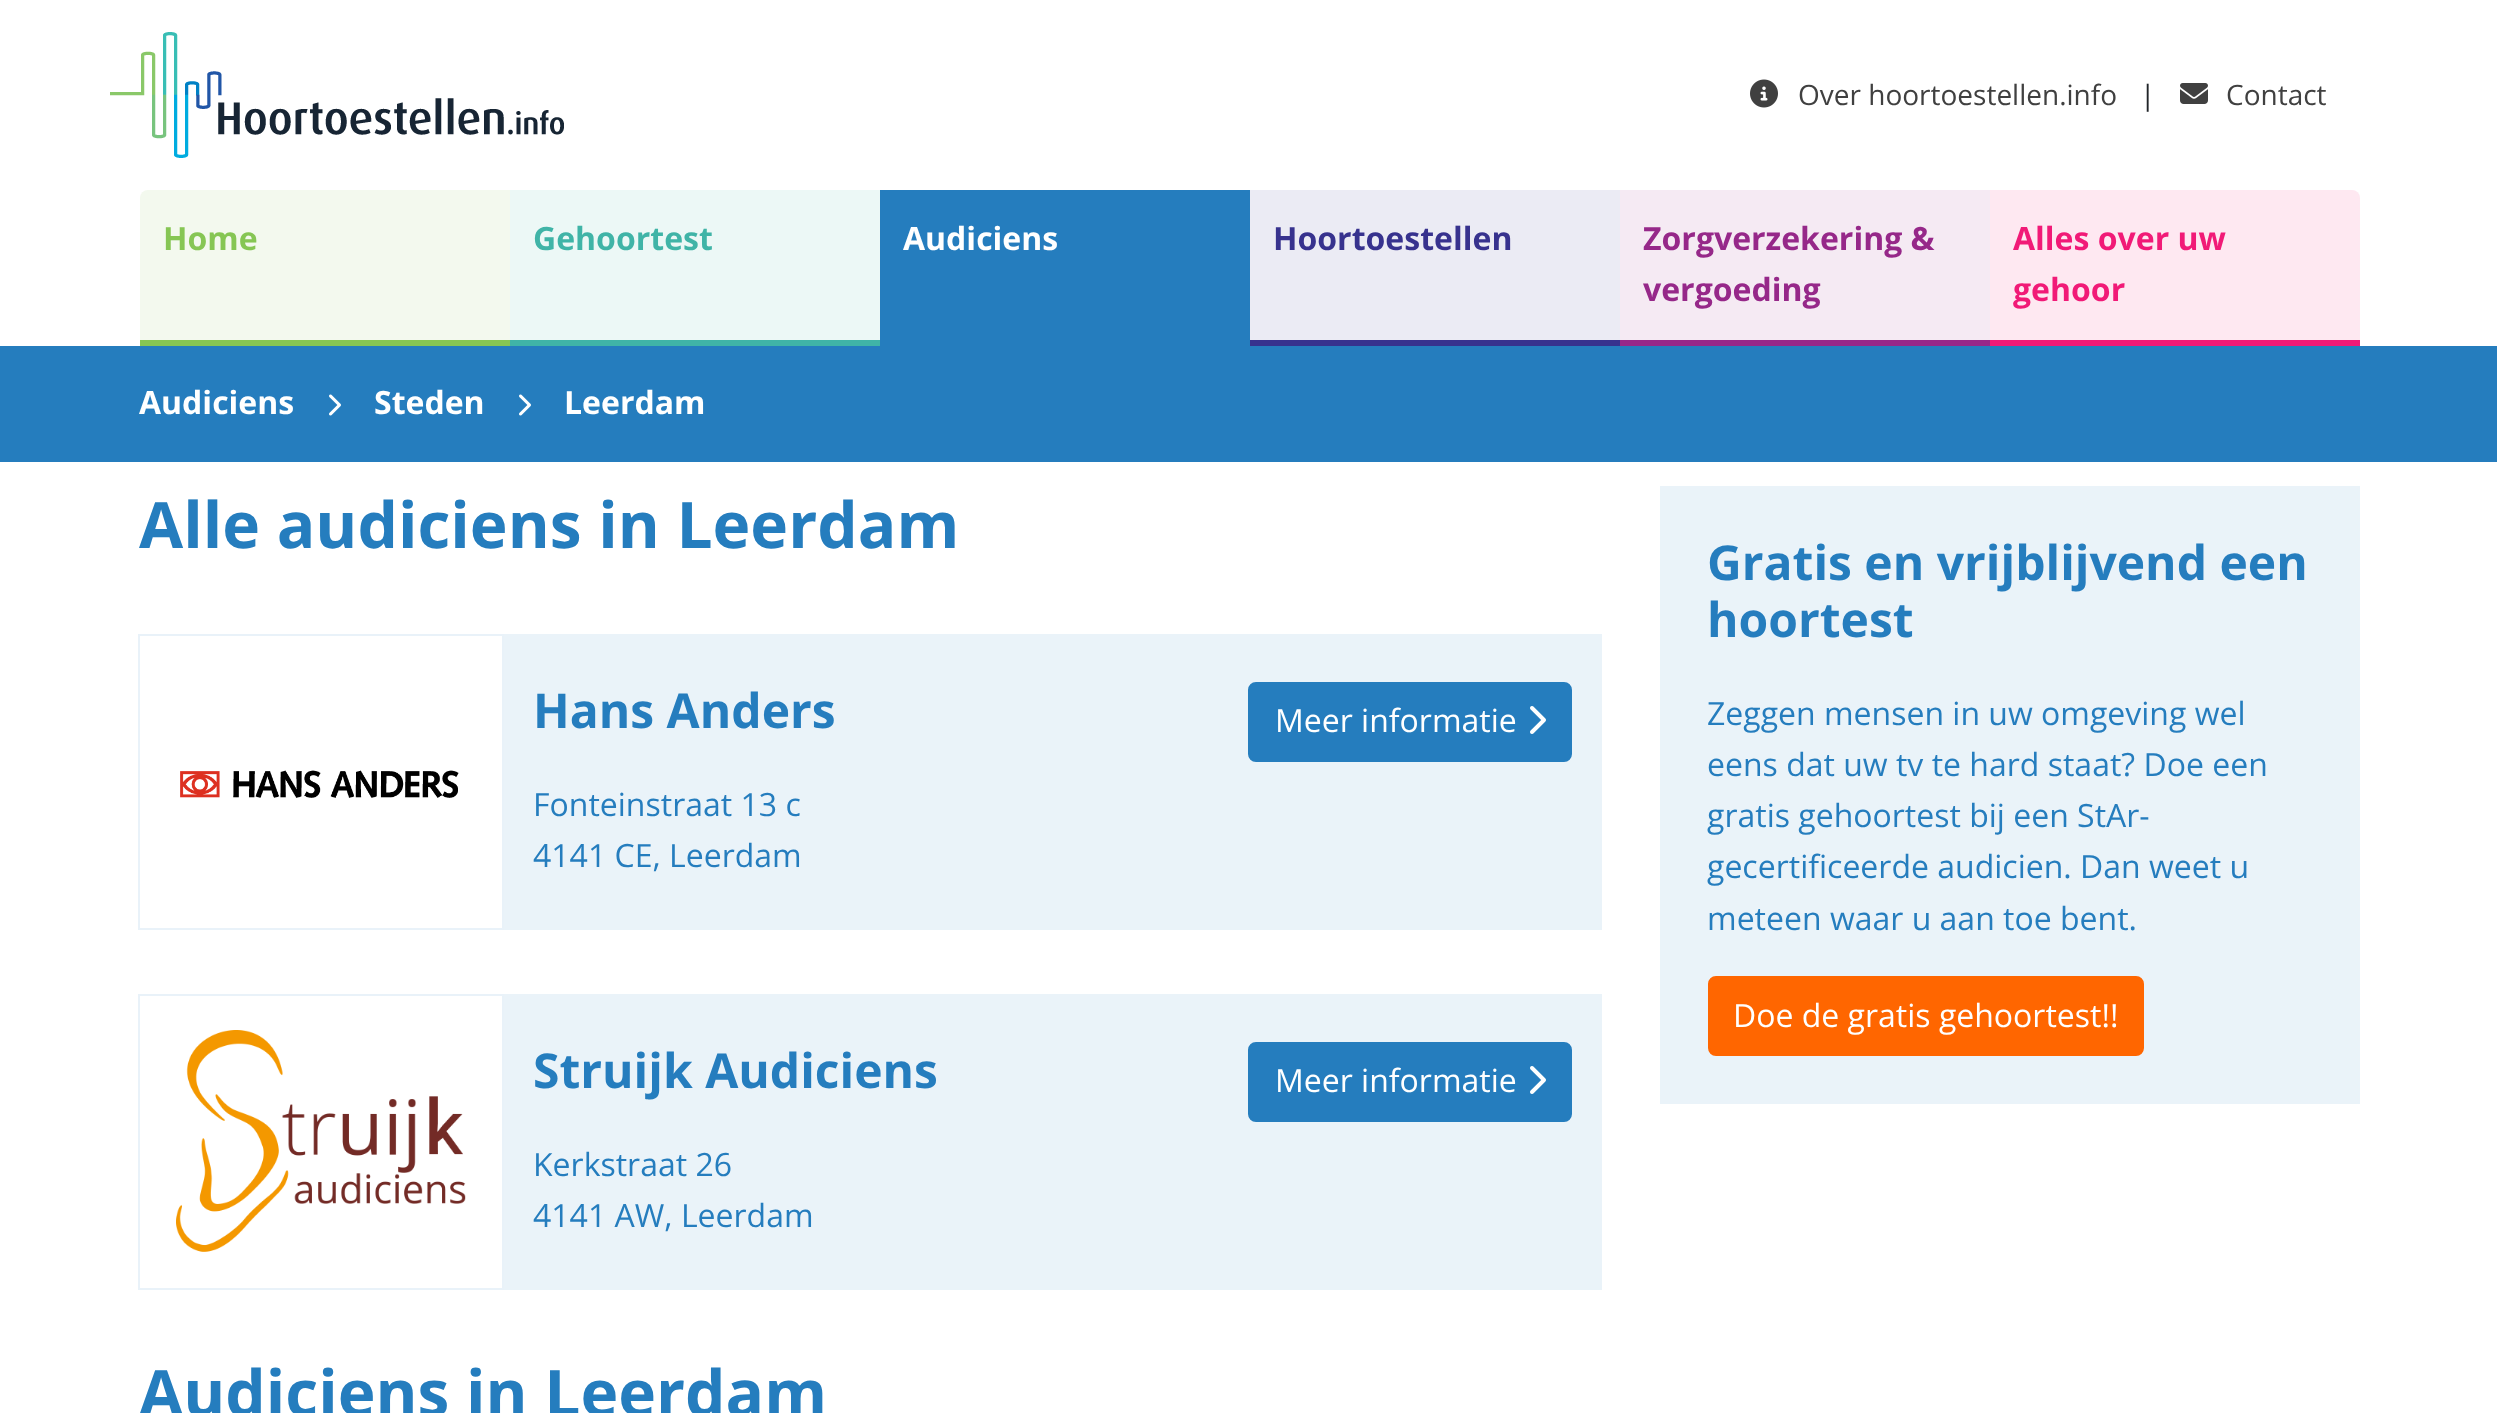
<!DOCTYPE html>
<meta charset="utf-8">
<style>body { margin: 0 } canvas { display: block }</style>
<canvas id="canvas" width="2497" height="1413"></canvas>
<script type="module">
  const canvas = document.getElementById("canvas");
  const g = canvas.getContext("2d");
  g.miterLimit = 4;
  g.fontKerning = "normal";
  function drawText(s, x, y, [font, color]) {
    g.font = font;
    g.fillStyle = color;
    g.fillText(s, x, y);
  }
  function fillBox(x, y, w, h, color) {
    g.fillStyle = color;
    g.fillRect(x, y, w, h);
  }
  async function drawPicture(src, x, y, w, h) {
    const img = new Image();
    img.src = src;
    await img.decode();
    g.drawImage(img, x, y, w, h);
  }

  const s1 = ["28px Open Sans", "#404040"];
  const s2 = ["28px Open Sans", "#212529"];
  const s3 = ["bold 32px Open Sans", "#86C654"];
  const s4 = ["bold 32px Open Sans", "#40B4A7"];
  const s5 = ["bold 32px Open Sans", "#FFFFFF"];
  const s6 = ["bold 32px Open Sans", "#37328E"];
  const s7 = ["bold 32px Open Sans", "#962889"];
  const s8 = ["bold 32px Open Sans", "#F11A77"];
  const s9 = ["bold 64px Open Sans", "#257DBE"];
  const s10 = ["bold 48px Open Sans", "#257DBE"];
  const s11 = ["32px Open Sans", "#257DBE"];
  const s12 = ["32px Open Sans", "#FFFFFF"];

  fillBox(0, 0, 2497, 1413, "#FFFFFF");
  await drawPicture("pic1.png", 110, 32, 454, 126);
  await drawPicture("pic2.png", 1750, 79, 28, 29);
  drawText("Over hoortoestellen.info", 1798, 105, s1);
  drawText("|", 2140, 105, s2);
  await drawPicture("pic3.png", 2180, 83, 28, 21);
  drawText("Contact", 2226, 105, s1);
  g.fillStyle = "#F3F9EE";
  g.beginPath();
  g.roundRect(140, 190, 370, 156, [8, 0, 0, 0]);
  g.fill();
  fillBox(140, 340, 370, 6, "#86C654");
  drawText("Home", 163, 250, s3);
  fillBox(510, 190, 370, 150, "#ECF8F6");
  fillBox(510, 340, 370, 6, "#40B4A7");
  drawText("Gehoortest", 533, 250, s4);
  fillBox(880, 190, 370, 156, "#257DBE");
  drawText("Audiciens", 903, 250, s5);
  fillBox(1250, 190, 370, 150, "#EBEBF4");
  fillBox(1250, 340, 370, 6, "#37328E");
  drawText("Hoortoestellen", 1273, 250, s6);
  fillBox(1620, 190, 370, 150, "#F5EAF3");
  fillBox(1620, 340, 370, 6, "#962889");
  drawText("Zorgverzekering &", 1643, 250, s7);
  drawText("vergoeding", 1643, 301, s7);
  g.fillStyle = "#FEE8F1";
  g.beginPath();
  g.roundRect(1990, 190, 370, 156, [0, 8, 0, 0]);
  g.fill();
  fillBox(1990, 340, 370, 6, "#F11A77");
  drawText("Alles over uw", 2013, 250, s8);
  drawText("gehoor", 2013, 301, s8);
  fillBox(0, 346, 2497, 116, "#257DBE");
  drawText("Audiciens", 139, 414, s5);
  await drawPicture("pic4.png", 329, 394, 12, 22);
  drawText("Steden", 374, 414, s5);
  await drawPicture("pic4.png", 519, 394, 12, 22);
  drawText("Leerdam", 564, 414, s5);
  drawText("Alle audiciens in Leerdam", 139, 548, s9);
  fillBox(504, 634, 1098, 296, "#EAF3F9");
  await drawPicture("pic5.png", 180, 770, 279, 28);
  g.strokeStyle = "#E9F2F9";
  g.lineWidth = 2;
  g.strokeRect(139, 635, 364, 294);
  drawText("Hans Anders", 533, 728, s10);
  drawText("Fonteinstraat 13 c", 533, 816, s11);
  drawText("4141 CE, Leerdam", 533, 867, s11);
  g.beginPath();
  g.roundRect(1249, 683, 322, 78, 7);
  g.fill();
  g.strokeStyle = "#257DBE";
  g.stroke();
  drawText("Meer informatie", 1275, 732, s12);
  await drawPicture("pic6.png", 1530, 706, 16, 28);
  fillBox(504, 994, 1098, 296, "#EAF3F9");
  await drawPicture("pic7.png", 176, 1030, 290, 222);
  g.strokeStyle = "#E9F2F9";
  g.strokeRect(139, 995, 364, 294);
  drawText("Struijk Audiciens", 533, 1088, s10);
  drawText("Kerkstraat 26", 533, 1176, s11);
  drawText("4141 AW, Leerdam", 533, 1227, s11);
  g.beginPath();
  g.roundRect(1249, 1043, 322, 78, 7);
  g.fill();
  g.strokeStyle = "#257DBE";
  g.stroke();
  drawText("Meer informatie", 1275, 1092, s12);
  await drawPicture("pic6.png", 1530, 1066, 16, 28);
  drawText("Audiciens in Leerdam", 139, 1416, s9);
  fillBox(1660, 486, 700, 618, "#EAF3F9");
  drawText("Gratis en vrijblijvend een", 1707, 580, s10);
  drawText("hoortest", 1707, 637, s10);
  drawText("Zeggen mensen in uw omgeving wel", 1707, 725, s11);
  drawText("eens dat uw tv te hard staat? Doe een", 1707, 776, s11);
  drawText("gratis gehoortest bij een StAr-", 1707, 827, s11);
  drawText("gecertificeerde audicien. Dan weet u", 1707, 878, s11);
  drawText("meteen waar u aan toe bent.", 1707, 930, s11);
  g.fillStyle = "#FF6600";
  g.beginPath();
  g.roundRect(1709, 977, 434, 78, 7);
  g.fill();
  g.strokeStyle = "#FF6600";
  g.stroke();
  drawText("Doe de gratis gehoortest!!", 1733, 1027, s12);
</script>
